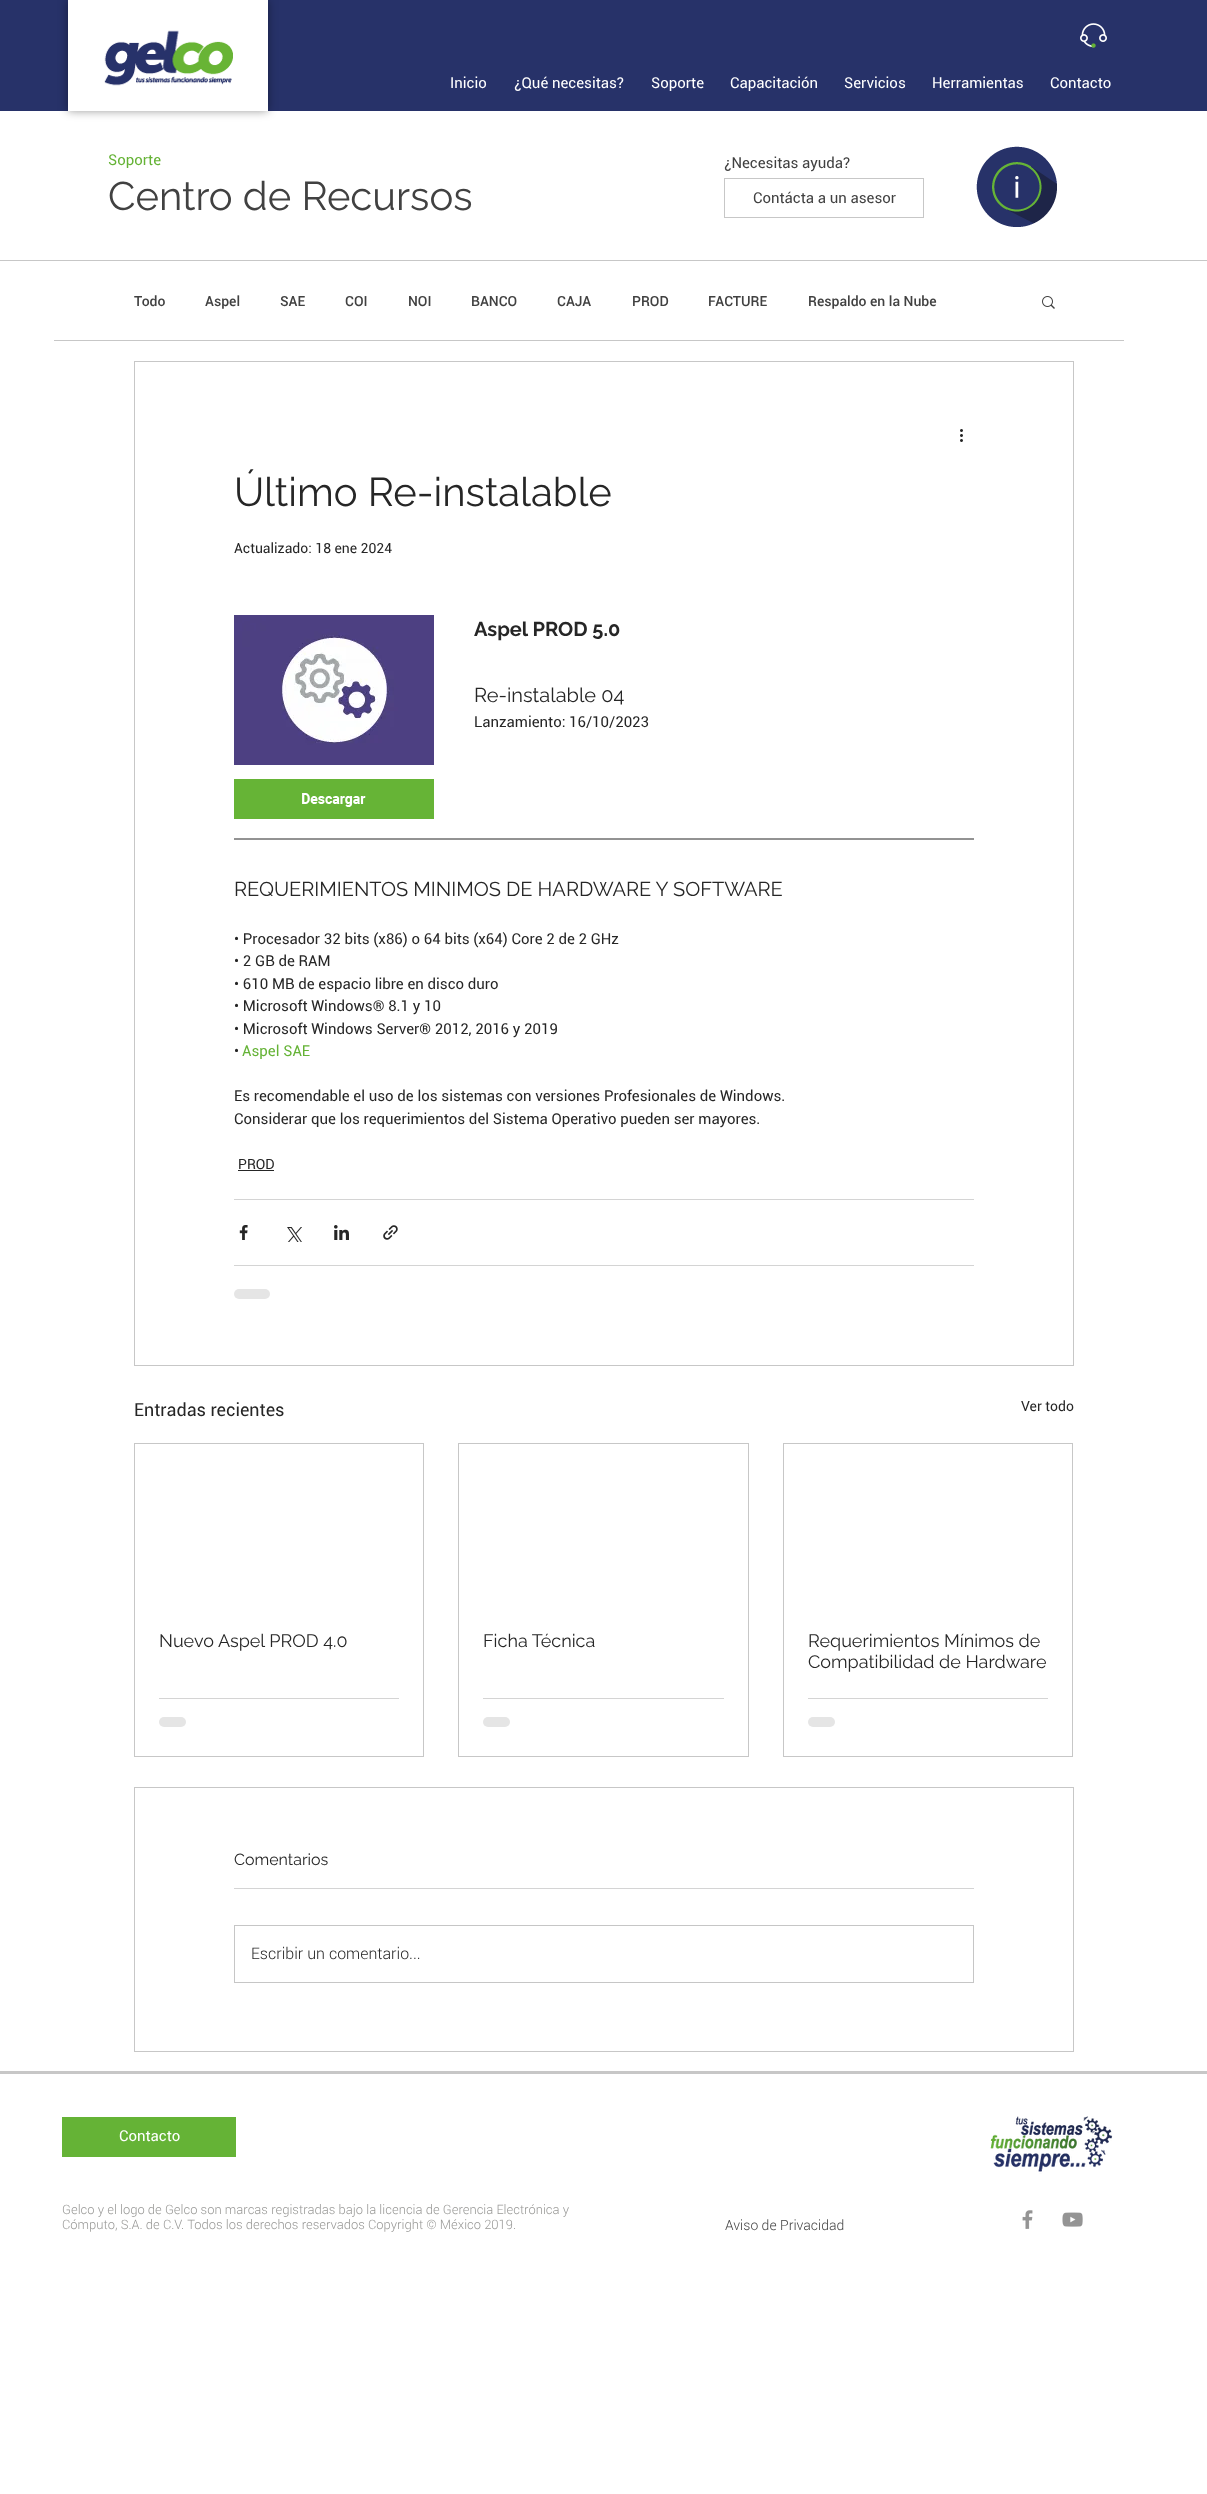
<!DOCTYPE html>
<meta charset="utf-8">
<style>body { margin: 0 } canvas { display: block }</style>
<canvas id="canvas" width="1207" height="2494"></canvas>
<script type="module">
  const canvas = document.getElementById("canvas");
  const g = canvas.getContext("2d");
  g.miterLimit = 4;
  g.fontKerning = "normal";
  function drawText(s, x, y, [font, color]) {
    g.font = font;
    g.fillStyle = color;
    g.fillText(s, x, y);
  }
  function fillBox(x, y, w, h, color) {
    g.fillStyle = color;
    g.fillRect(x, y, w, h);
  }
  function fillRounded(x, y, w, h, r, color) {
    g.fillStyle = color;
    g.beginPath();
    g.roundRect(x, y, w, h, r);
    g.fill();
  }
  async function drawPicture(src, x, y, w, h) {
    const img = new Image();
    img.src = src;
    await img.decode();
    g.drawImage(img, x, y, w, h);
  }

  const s1 = ["15px Roboto", "#FFFFFF"];
  const s2 = ["15px Roboto", "#65B336"];
  const s3 = ["40px Raleway", "#414141"];
  const s4 = ["15px Roboto", "#414141"];
  const s5 = ["500 14px Roboto", "#414141"];
  const s6 = ["40px Raleway", "#262626"];
  const s7 = ["14px Roboto", "#262626"];
  const s8 = ["bold 20px Raleway", "#262626"];
  const s9 = ["20px Raleway", "#262626"];
  const s10 = ["15px Roboto", "#262626"];
  const s11 = ["18px Roboto", "#262626"];
  const s12 = ["18px Raleway", "#262626"];
  const s13 = ["16px Raleway", "#262626"];
  const s14 = ["300 16px Roboto", "#262626"];
  const s15 = ["300 13px Roboto", "#999997"];
  const s16 = ["300 14px Roboto", "#414141"];

  fillBox(0, 0, 1207, 2494, "#FFFFFF");
  fillBox(0, 0, 1207, 111, "#273269");
  g.fillStyle = "rgba(0, 0, 0, 0.4)";
  g.filter = "blur(5px)";
  g.beginPath();
  g.rect(68, 0, 200, 111);
  g.fill();
  g.filter = "none";
  fillBox(68, 0, 200, 111, "#FFFFFF");
  await drawPicture("pic1.png", 104, 30, 129, 56);
  await drawPicture("pic2.png", 1080, 23, 27, 25);
  drawText("Inicio", 450, 88, s1);
  drawText("¿Qué necesitas?", 514, 88, s1);
  drawText("Soporte", 651, 88, s1);
  drawText("Capacitación", 730, 88, s1);
  drawText("Servicios", 844, 88, s1);
  drawText("Herramientas", 932, 88, s1);
  drawText("Contacto", 1050, 88, s1);
  drawText("Soporte", 108, 165, s2);
  drawText("Centro de Recursos", 108, 210, s3);
  drawText("¿Necesitas ayuda?", 724, 168, s4);
  g.strokeStyle = "#C7C7C7";
  g.strokeRect(724.5, 178.5, 199, 39);
  drawText("Contácta a un asesor", 753, 203, s4);
  await drawPicture("pic3.png", 976, 146, 81, 81);
  drawText("Todo", 134, 306, s5);
  drawText("Aspel", 205, 306, s5);
  drawText("SAE", 280, 306, s5);
  drawText("COI", 345, 306, s5);
  drawText("NOI", 408, 306, s5);
  drawText("BANCO", 471, 306, s5);
  drawText("CAJA", 557, 306, s5);
  drawText("PROD", 632, 306, s5);
  drawText("FACTURE", 708, 306, s5);
  drawText("Respaldo en la Nube", 808, 306, s5);
  await drawPicture("pic4.png", 1042, 296, 13, 13);
  g.strokeRect(134.5, 361.5, 939, 1004);
  await drawPicture("pic5.png", 960, 429, 3, 13);
  drawText("Último Re-instalable", 234, 506, s6);
  drawText("Actualizado: 18 ene 2024", 234, 553, s7);
  await drawPicture("pic6.png", 234, 615, 200, 150);
  drawText("Aspel PROD 5.0", 474, 636, s8);
  drawText("Re-instalable 04", 474, 702, s9);
  drawText("Lanzamiento:", 474, 727, s10);
  drawText("16/10/2023", 569, 727, s10);
  await drawPicture("pic7.png", 234, 779, 200, 40);
  g.beginPath();
  g.moveTo(234, 839);
  g.lineTo(974, 839);
  g.strokeStyle = "#262626";
  g.stroke();
  drawText("REQUERIMIENTOS MINIMOS DE HARDWARE Y SOFTWARE", 234, 896, s9);
  drawText("• Procesador 32 bits (x86) o 64 bits (x64) Core 2 de 2 GHz", 234, 944, s10);
  drawText("• 2 GB de RAM", 234, 966, s10);
  drawText("• 610 MB de espacio libre en disco duro", 234, 989, s10);
  drawText("• Microsoft Windows® 8.1 y 10", 234, 1011, s10);
  drawText("• Microsoft Windows Server® 2012, 2016 y 2019", 234, 1034, s10);
  drawText("•", 234, 1056, s10);
  drawText("Aspel SAE", 242, 1056, s2);
  drawText("Es recomendable el uso de los sistemas con versiones Profesionales de Windows.", 234, 1101, s10);
  drawText("Considerar que los requerimientos del Sistema Operativo pueden ser mayores.", 234, 1124, s10);
  drawText("PROD", 238, 1169, s7);
  fillBox(238, 1170, 36, 1, "#262626");
  fillBox(234, 1199, 740, 1, "#D4D4D4");
  await drawPicture("pic8.png", 239, 1225, 9, 15);
  await drawPicture("pic9.png", 287, 1227, 15, 15);
  await drawPicture("pic10.png", 334, 1225, 15, 15);
  await drawPicture("pic11.png", 383, 1225, 15, 15);
  fillBox(234, 1265, 740, 1, "#D4D4D4");
  fillRounded(234, 1289, 36, 10, 5, "#E5E5E5");
  drawText("Entradas recientes", 134, 1416, s11);
  drawText("Ver todo", 1021, 1411, s7);
  g.strokeStyle = "#C7C7C7";
  g.strokeRect(134.5, 1443.5, 289, 313);
  drawText("Nuevo Aspel PROD 4.0", 159, 1647, s12);
  fillBox(159, 1698, 240, 1, "#D4D4D4");
  fillRounded(159, 1717, 27, 10, 5, "#E5E5E5");
  g.strokeRect(458.5, 1443.5, 290, 313);
  drawText("Ficha Técnica", 483, 1647, s12);
  fillBox(483, 1698, 241, 1, "#D4D4D4");
  fillRounded(483, 1717, 27, 10, 5, "#E5E5E5");
  g.strokeRect(783.5, 1443.5, 289, 313);
  drawText("Requerimientos Mínimos de", 808, 1647, s12);
  drawText("Compatibilidad de Hardware", 808, 1668, s12);
  fillBox(808, 1698, 240, 1, "#D4D4D4");
  fillRounded(808, 1717, 27, 10, 5, "#E5E5E5");
  g.strokeRect(134.5, 1787.5, 939, 264);
  drawText("Comentarios", 234, 1865, s13);
  fillBox(234, 1888, 740, 1, "#D4D4D4");
  g.strokeStyle = "#C6C6C6";
  g.strokeRect(234.5, 1925.5, 739, 57);
  drawText("Escribir un comentario...", 251, 1959, s14);
  fillBox(54, 340, 1070, 1, "#C7C7C7");
  fillBox(0, 260, 1207, 1, "#C7C7C7");
  fillBox(0, 2071, 1207, 3, "#C7C7C7");
  fillBox(62, 2117, 174, 40, "#65B336");
  drawText("Contacto", 119, 2141, s1);
  drawText("Gelco y el logo de Gelco son marcas registradas bajo la licencia de Gerencia Electrónica y", 62, 2214, s15);
  drawText("Cómputo, S.A. de C.V. Todos los derechos reservados Copyright © México 2019.", 62, 2229, s15);
  drawText("Aviso de Privacidad", 725, 2230, s16);
  await drawPicture("pic12.png", 990, 2116, 123, 58);
  await drawPicture("pic13.png", 1022, 2210, 11, 19);
  await drawPicture("pic14.png", 1062, 2212, 21, 15);
</script>
